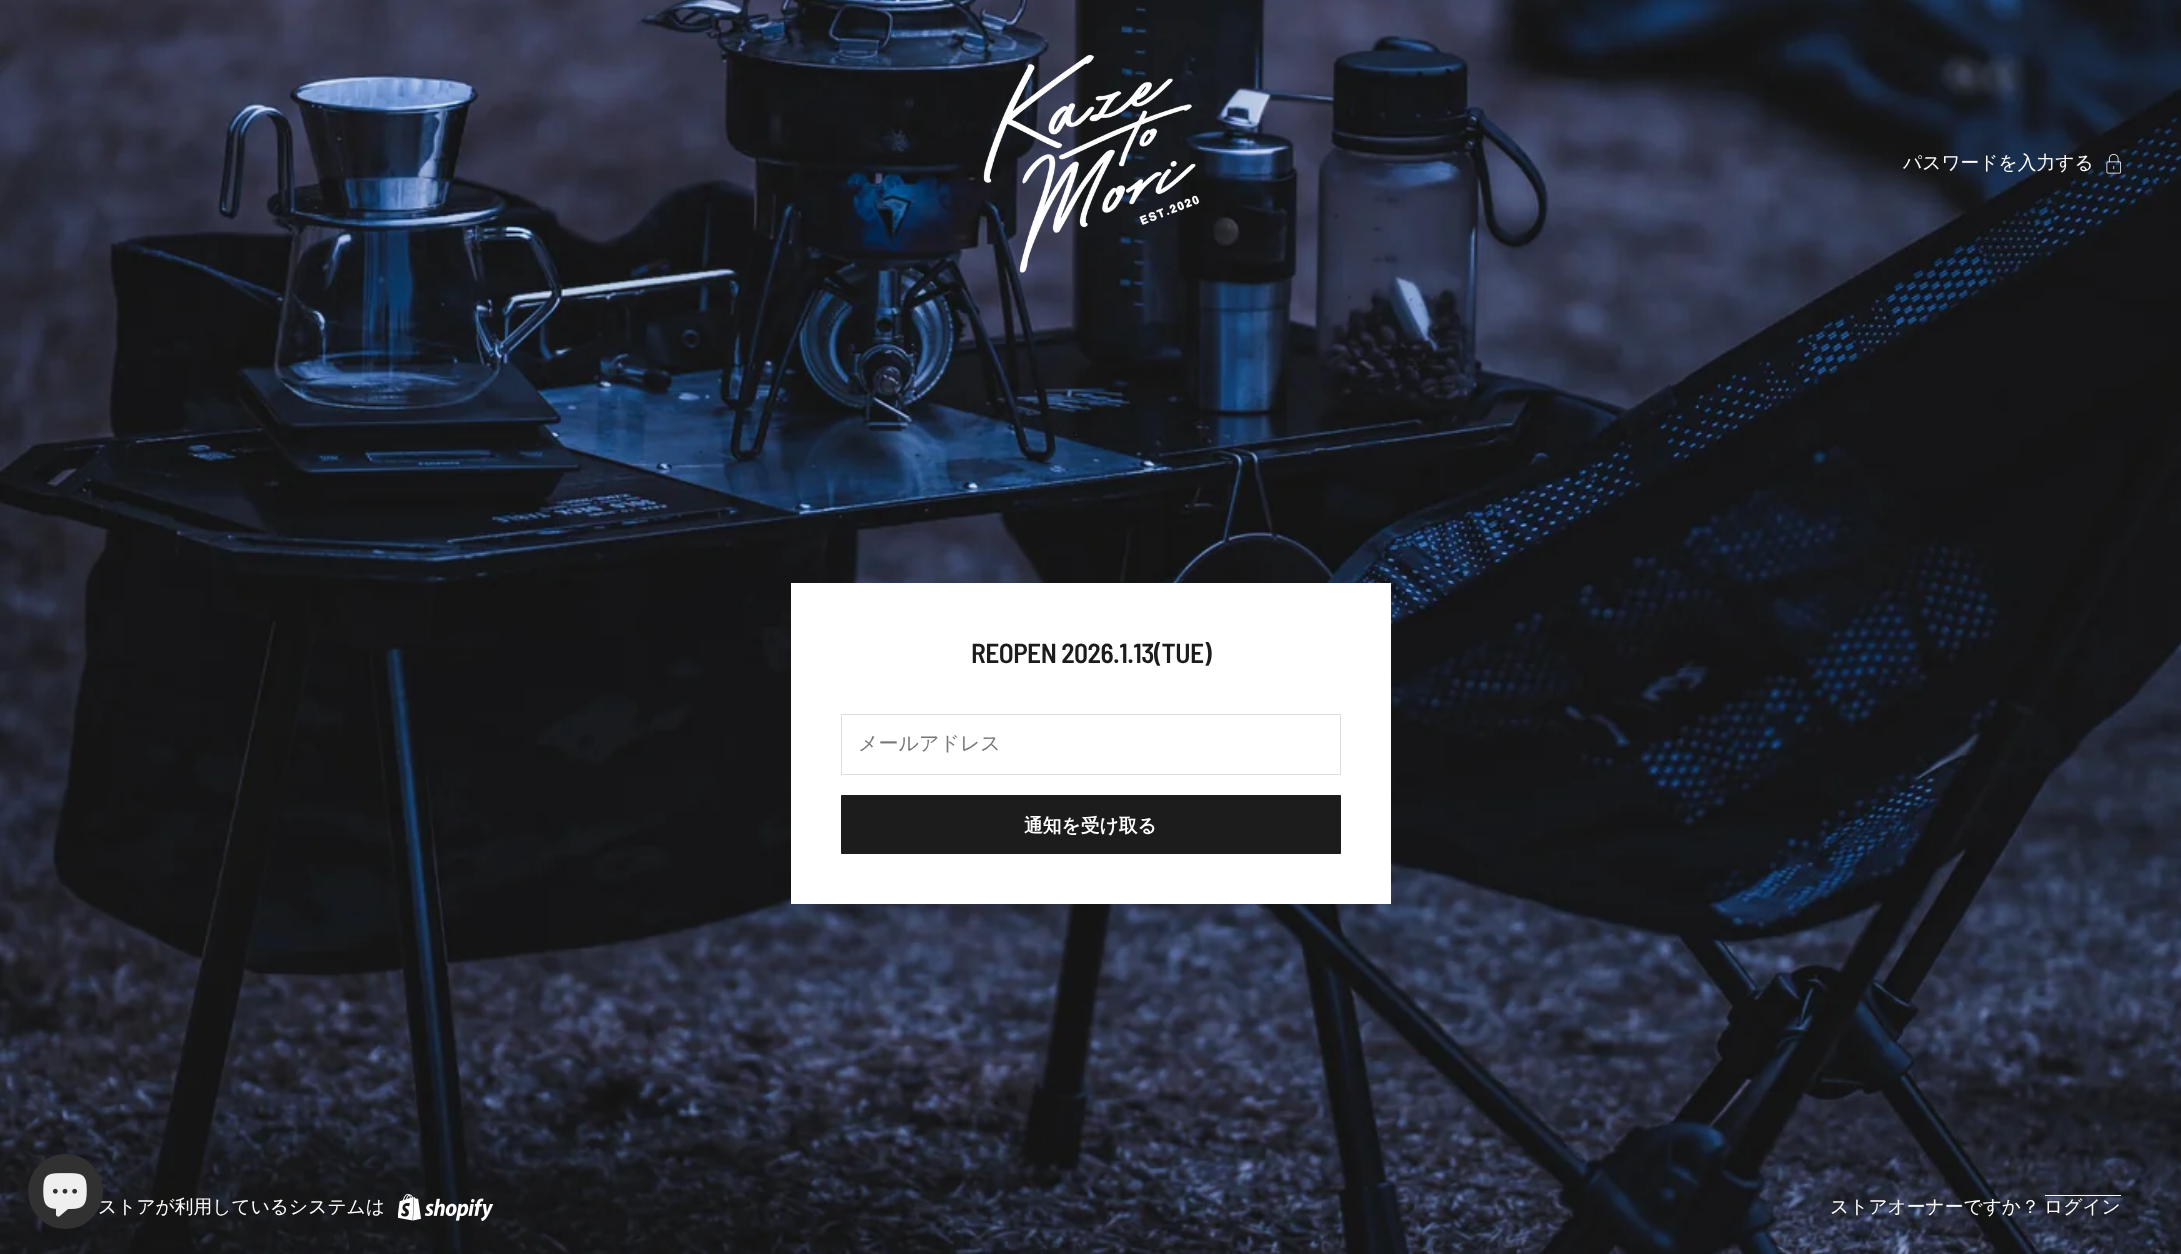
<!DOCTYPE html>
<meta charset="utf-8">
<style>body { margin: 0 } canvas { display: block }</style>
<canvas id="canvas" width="2181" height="1254"></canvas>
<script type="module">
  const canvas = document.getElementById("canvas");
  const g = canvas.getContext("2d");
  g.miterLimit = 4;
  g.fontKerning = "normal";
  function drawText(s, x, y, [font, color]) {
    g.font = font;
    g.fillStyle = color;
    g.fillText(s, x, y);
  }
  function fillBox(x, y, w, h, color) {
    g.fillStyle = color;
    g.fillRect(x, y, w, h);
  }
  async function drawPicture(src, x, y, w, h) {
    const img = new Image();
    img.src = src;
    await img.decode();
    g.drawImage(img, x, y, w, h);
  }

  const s1 = ["500 18.75px WenQuanYi Zen Hei", "#FFFFFF"];
  const s2 = ["600 27.5px Barlow Semi Condensed", "#1C1C1C"];
  const s3 = ["500 20px WenQuanYi Zen Hei", "#777777"];
  const s4 = ["bold 18.75px WenQuanYi Zen Hei", "#FFFFFF"];

  fillBox(0, 0, 2181, 1254, "#FFFFFF");
  await drawPicture("pic2.png", 0, 0, 2181, 1254);
  drawText("ストアが利用しているシステムは", 98, 1213, s1);
  g.fillStyle = "#313131";
  g.beginPath();
  g.arc(65.5, 1191.5, 37.5, 0, Math.PI * 2);
  g.fill();
  await drawPicture("pic1.png", 43, 1173, 44, 44);
  await drawPicture("pic3.png", 983, 54, 217, 219);
  drawText("パスワードを入力する", 1903, 169, s1);
  await drawPicture("pic4.png", 2106, 154, 15, 20);
  fillBox(791, 583, 600, 321, "#FFFFFF");
  g.letterSpacing = "-0.55px";
  drawText("REOPEN 2026.1.13(TUE)", 971, 663, s2);
  g.strokeStyle = "#DDDDDD";
  g.strokeRect(841.5, 714.5, 499, 60);
  g.letterSpacing = "0px";
  drawText("メールアドレス", 858, 750, s3);
  g.fillStyle = "#1C1C1C";
  g.beginPath();
  g.rect(841.5, 795.5, 499, 58);
  g.fill();
  g.strokeStyle = "#1C1C1C";
  g.stroke();
  drawText("通知を受け取る", 1024, 832, s4);
  await drawPicture("pic5.png", 398, 1194, 96, 27);
  drawText("ストアオーナーですか？", 1830, 1213, s1);
  drawText("ログイン", 2044, 1213, s1);
  fillBox(2045, 1195, 76, 1, "#FFFFFF");
</script>
